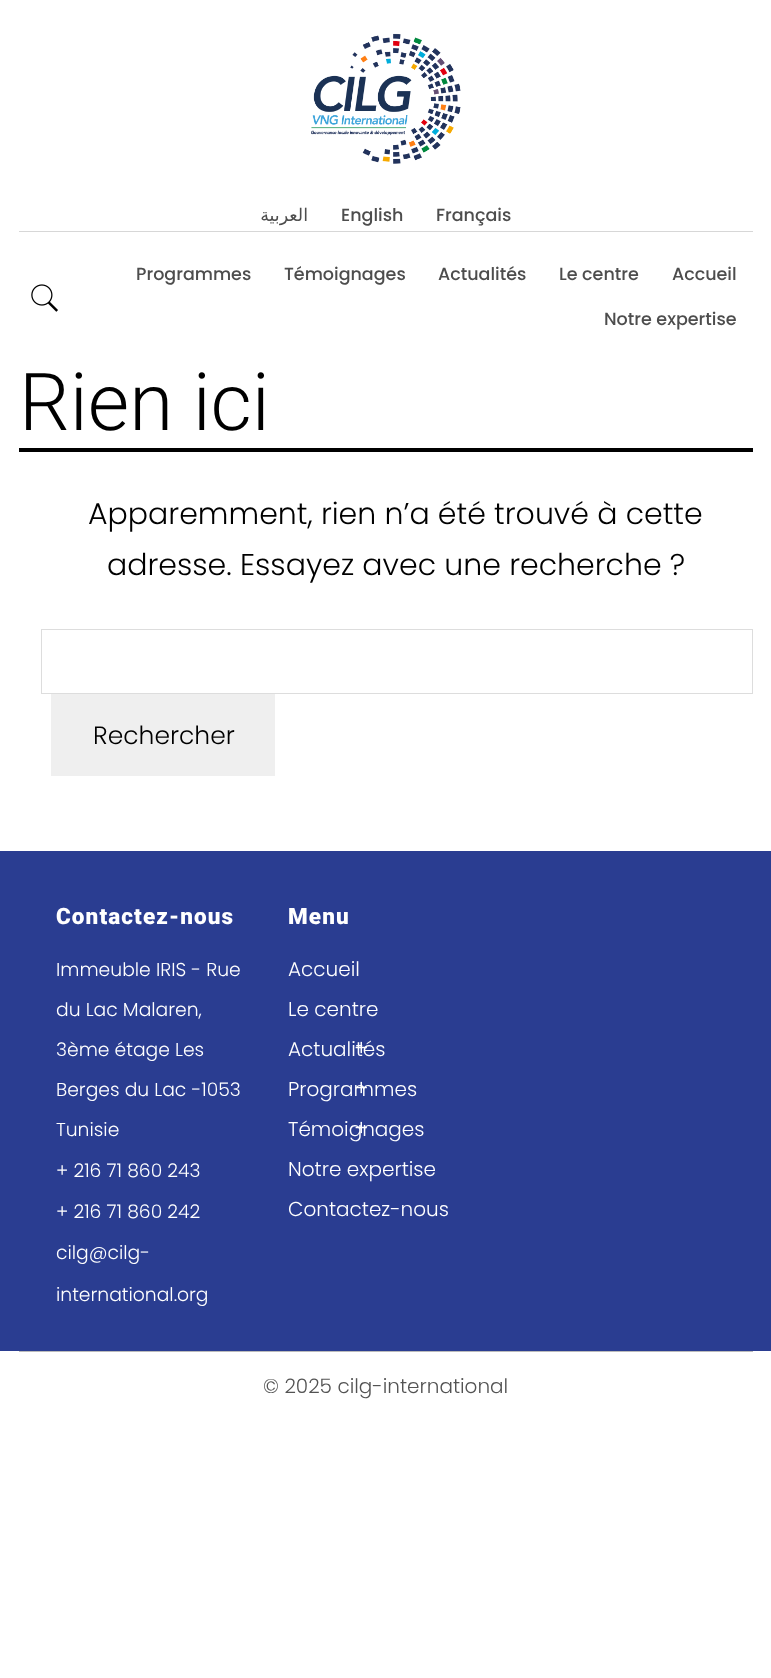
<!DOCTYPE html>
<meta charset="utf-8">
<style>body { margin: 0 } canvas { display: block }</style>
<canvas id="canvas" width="771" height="1678"></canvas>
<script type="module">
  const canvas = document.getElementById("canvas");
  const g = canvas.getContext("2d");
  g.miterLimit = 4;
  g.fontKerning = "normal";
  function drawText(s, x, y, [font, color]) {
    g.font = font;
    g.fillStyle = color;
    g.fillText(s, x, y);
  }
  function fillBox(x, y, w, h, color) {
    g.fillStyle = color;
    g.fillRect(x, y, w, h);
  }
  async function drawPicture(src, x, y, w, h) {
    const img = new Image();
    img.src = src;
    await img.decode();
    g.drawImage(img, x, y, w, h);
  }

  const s1 = ["17.5px DejaVu Sans", "#4D4D4D"];
  const s2 = ["500 17.5px Poppins", "#4D4D4D"];
  const s3 = ["300 80px Roboto", "#000000"];
  const s4 = ["300 30px Poppins", "#000000"];
  const s5 = ["300 25px Poppins", "#000000"];
  const s6 = ["900 22.5px Roboto", "#FFFFFF"];
  const s7 = ["300 18.75px Poppins", "#FFFFFF"];
  const s8 = ["300 20px Poppins", "#FFFFFF"];
  const s9 = ["300 20px Poppins", "#535353"];

  fillBox(0, 0, 771, 1678, "#FFFFFF");
  fillBox(19, 231, 734, 1, "#D7D7D7");
  await drawPicture("pic1.png", 311, 33, 150, 131);
  g.direction = "rtl";
  drawText("العربية", 308, 221, s1);
  g.direction = "ltr";
  drawText("English", 341, 221, s2);
  drawText("Français", 436, 221, s2);
  await drawPicture("pic2.png", 31, 284, 27, 28);
  drawText("Programmes", 136, 280, s2);
  drawText("Témoignages", 284, 280, s2);
  drawText("Actualités", 438, 280, s2);
  drawText("Le centre", 559, 280, s2);
  drawText("Accueil", 672, 280, s2);
  drawText("Notre expertise", 604, 325, s2);
  fillBox(19, 448, 734, 4, "#000000");
  drawText("Rien ici", 19, 430, s3);
  drawText("Apparemment, rien n’a été trouvé à cette", 88, 524, s4);
  drawText("adresse. Essayez avec une recherche ?", 107, 575, s4);
  g.strokeStyle = "#DDDDDD";
  g.strokeRect(41.5, 629.5, 711, 64);
  fillBox(51, 694, 224, 82, "#EFEFEF");
  drawText("Rechercher", 93, 744, s5);
  fillBox(0, 851, 771, 500, "#2A3D91");
  g.letterSpacing = "1.1px";
  drawText("Contactez-nous", 56, 924, s6);
  g.letterSpacing = "0px";
  drawText("Immeuble IRIS - Rue", 56, 976, s7);
  drawText("du Lac Malaren,", 56, 1016, s7);
  drawText("3ème étage Les", 56, 1056, s7);
  drawText("Berges du Lac -1053", 56, 1096, s7);
  drawText("Tunisie", 56, 1136, s7);
  drawText("+ 216 71 860 243", 56, 1177, s7);
  drawText("+ 216 71 860 242", 56, 1218, s7);
  drawText("cilg@cilg-", 56, 1259, s7);
  drawText("international.org", 56, 1301, s7);
  g.letterSpacing = "1.1px";
  drawText("Menu", 288, 924, s6);
  g.letterSpacing = "0px";
  drawText("Accueil", 288, 976, s8);
  drawText("Le centre", 288, 1016, s8);
  drawText("Actualités", 288, 1056, s8);
  await drawPicture("pic3.png", 355, 1041, 12, 13);
  drawText("Programmes", 288, 1096, s8);
  await drawPicture("pic4.png", 355, 1081, 12, 13);
  drawText("Témoignages", 288, 1136, s8);
  await drawPicture("pic5.png", 355, 1121, 12, 13);
  drawText("Notre expertise", 288, 1176, s8);
  drawText("Contactez-nous", 288, 1216, s8);
  fillBox(19, 1351, 734, 1, "#BBBBBB");
  drawText("© 2025 cilg-international", 263, 1393, s9);
</script>
